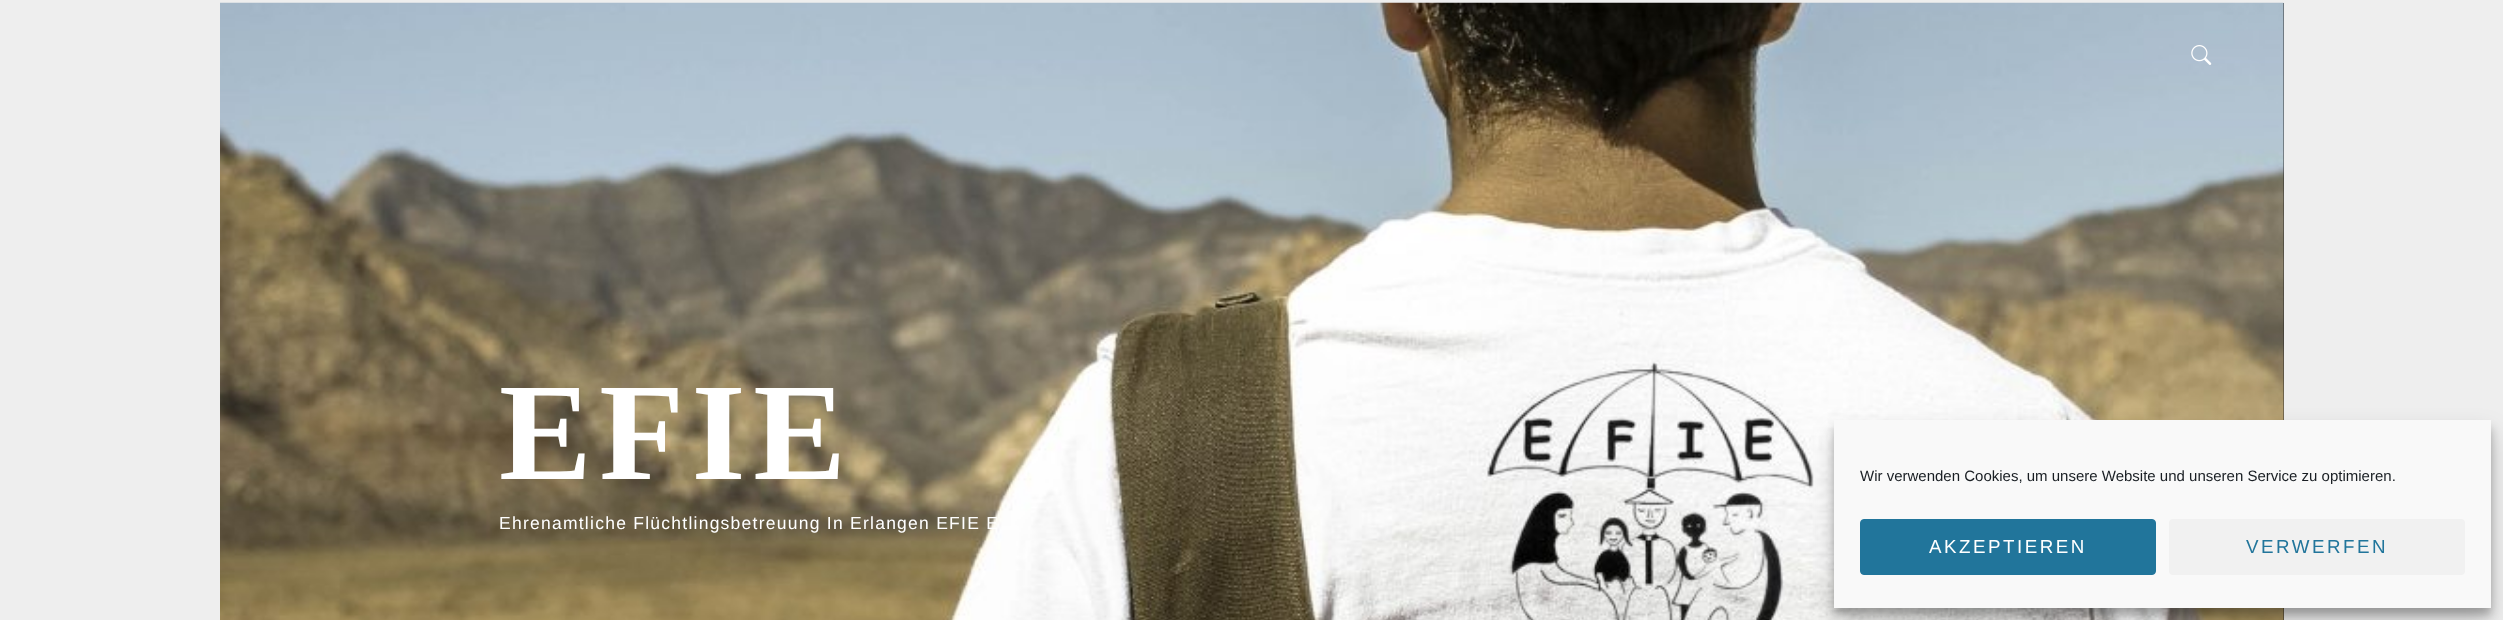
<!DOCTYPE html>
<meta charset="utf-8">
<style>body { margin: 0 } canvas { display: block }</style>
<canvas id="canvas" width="2503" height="620"></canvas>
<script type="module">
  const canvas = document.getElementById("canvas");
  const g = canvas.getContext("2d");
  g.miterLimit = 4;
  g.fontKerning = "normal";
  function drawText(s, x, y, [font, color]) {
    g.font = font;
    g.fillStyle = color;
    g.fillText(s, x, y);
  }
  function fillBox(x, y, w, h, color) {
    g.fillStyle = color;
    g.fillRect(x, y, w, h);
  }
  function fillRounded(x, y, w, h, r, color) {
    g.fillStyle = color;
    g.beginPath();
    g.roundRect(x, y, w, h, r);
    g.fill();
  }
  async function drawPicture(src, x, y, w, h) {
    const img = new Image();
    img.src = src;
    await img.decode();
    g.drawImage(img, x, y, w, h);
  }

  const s1 = ["bold 139px Liberation Serif", "#FFFFFF"];
  const s2 = ["17.5px Liberation Sans", "#FFFFFF"];
  const s3 = ["15px Liberation Sans", "#191E23"];
  const s4 = ["18.75px Liberation Sans", "#FFFFFF"];
  const s5 = ["18.75px Liberation Sans", "#21759B"];

  fillBox(0, 0, 2503, 620, "#EEEEEE");
  fillBox(2283, 3, 1, 617, "#222222");
  await drawPicture("pic1.png", 220, 2, 2064, 618);
  await drawPicture("pic2.png", 2191, 45, 21, 20);
  g.letterSpacing = "7.5px";
  drawText("EFIE", 499, 479, s1);
  g.letterSpacing = "1.25px";
  drawText("Ehrenamtliche Flüchtlingsbetreuung In Erlangen EFIE E", 499, 529, s2);
  g.fillStyle = "rgba(0, 0, 0, 0.23)";
  g.filter = "blur(4px)";
  g.beginPath();
  g.rect(1834, 428, 657, 187);
  g.fill();
  g.filter = "none";
  g.fillStyle = "rgba(0, 0, 0, 0.19)";
  g.filter = "blur(12.5px)";
  g.beginPath();
  g.rect(1834, 433, 657, 187);
  g.fill();
  g.filter = "none";
  fillBox(1834, 420, 657, 188, "#F9F9F9");
  g.letterSpacing = "0px";
  drawText("Wir verwenden Cookies, um unsere Website und unseren Service zu optimieren.", 1860, 481, s3);
  g.fillStyle = "#21759B";
  g.beginPath();
  g.roundRect(1860.5, 519.5, 295, 55, 3.5);
  g.fill();
  g.strokeStyle = "#21759B";
  g.stroke();
  g.letterSpacing = "2.5px";
  drawText("AKZEPTIEREN", 1929, 553, s4);
  fillRounded(2169, 519, 296, 56, 4, "#F1F1F1");
  drawText("VERWERFEN", 2246, 553, s5);
</script>
